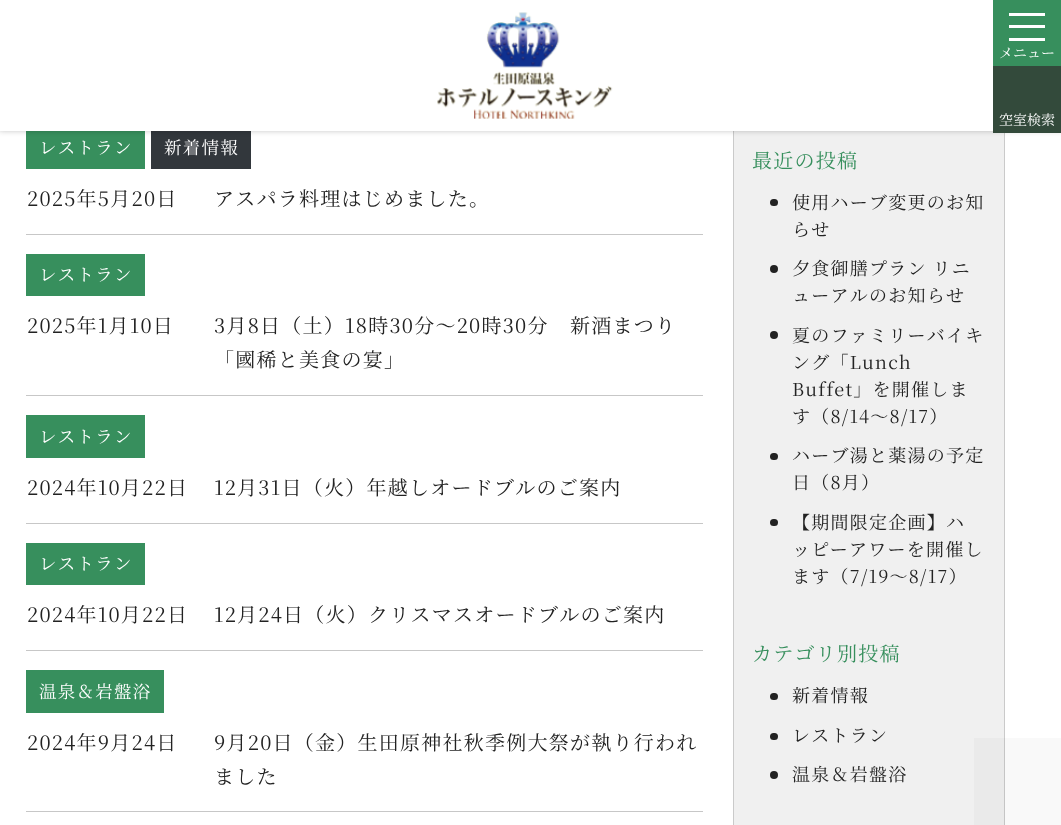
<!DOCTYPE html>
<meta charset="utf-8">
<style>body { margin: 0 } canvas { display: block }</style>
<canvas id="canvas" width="1061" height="825"></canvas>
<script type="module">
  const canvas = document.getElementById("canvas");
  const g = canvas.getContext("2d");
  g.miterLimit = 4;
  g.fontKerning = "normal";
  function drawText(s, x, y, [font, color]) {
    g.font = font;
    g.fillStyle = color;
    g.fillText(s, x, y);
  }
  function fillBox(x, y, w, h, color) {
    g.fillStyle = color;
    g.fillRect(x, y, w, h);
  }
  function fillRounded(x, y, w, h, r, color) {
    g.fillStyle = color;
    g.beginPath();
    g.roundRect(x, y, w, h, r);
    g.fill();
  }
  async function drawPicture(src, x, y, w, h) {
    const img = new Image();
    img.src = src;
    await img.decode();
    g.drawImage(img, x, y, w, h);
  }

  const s1 = ["14px Noto Serif JP", "#FFFFFF"];
  const s2 = ["17.5px Noto Serif JP", "#FFFFFF"];
  const s3 = ["20px Noto Serif JP", "#222222"];
  const s4 = ["20px Noto Serif JP", "#378F5D"];
  const s5 = ["18px Noto Serif JP", "#222222"];

  fillBox(0, 0, 1061, 825, "#FFFFFF");
  fillBox(26, 131, 119, 38, "#378F5D");
  fillBox(151, 131, 100, 38, "#32373C");
  fillBox(734, 131, 270, 694, "#F0F0F0");
  g.strokeStyle = "#CACACA";
  g.strokeRect(733.5, 106.5, 271, 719);
  g.fillStyle = "rgba(0, 0, 0, 0.3)";
  g.filter = "blur(3px)";
  g.beginPath();
  g.rect(-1, -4, 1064, 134);
  g.fill();
  g.filter = "none";
  fillBox(0, 0, 993, 131, "#FFFFFF");
  await drawPicture("pic1.png", 437, 12, 176, 107);
  fillBox(993, 0, 68, 66, "#378F5D");
  fillBox(1009, 13, 36, 3, "#FFFFFF");
  fillBox(1009, 25, 36, 3, "#FFFFFF");
  fillBox(1009, 38, 36, 3, "#FFFFFF");
  drawText("メニュー", 999, 58, s1);
  fillBox(993, 66, 68, 67, "#334A3B");
  drawText("空室検索", 999, 125, s1);
  fillBox(26, 234, 677, 1, "#C7C7C7");
  g.letterSpacing = "1.25px";
  drawText("レストラン", 39, 154, s2);
  drawText("新着情報", 164, 154, s2);
  drawText("2025年5月20日", 27, 206, s3);
  drawText("アスパラ料理はじめました。", 214, 206, s3);
  fillBox(26, 395, 677, 1, "#C7C7C7");
  fillBox(26, 254, 119, 42, "#378F5D");
  drawText("レストラン", 39, 281, s2);
  drawText("2025年1月10日", 27, 333, s3);
  drawText("3月8日（土）18時30分～20時30分　新酒まつり", 214, 333, s3);
  drawText("「國稀と美食の宴」", 214, 367, s3);
  fillBox(26, 523, 677, 1, "#C7C7C7");
  fillBox(26, 415, 119, 43, "#378F5D");
  drawText("レストラン", 39, 443, s2);
  drawText("2024年10月22日", 27, 495, s3);
  drawText("12月31日（火）年越しオードブルのご案内", 214, 495, s3);
  fillBox(26, 650, 677, 1, "#C7C7C7");
  fillBox(26, 543, 119, 42, "#378F5D");
  drawText("レストラン", 39, 570, s2);
  drawText("2024年10月22日", 27, 622, s3);
  drawText("12月24日（火）クリスマスオードブルのご案内", 214, 622, s3);
  fillBox(26, 811, 677, 1, "#C7C7C7");
  fillBox(26, 670, 138, 43, "#378F5D");
  drawText("温泉＆岩盤浴", 39, 698, s2);
  drawText("2024年9月24日", 27, 750, s3);
  drawText("9月20日（金）生田原神社秋季例大祭が執り行われ", 214, 750, s3);
  drawText("ました", 214, 784, s3);
  drawText("最近の投稿", 752, 168, s4);
  fillRounded(770, 199, 8, 7, 3.5, "#222222");
  drawText("使用ハーブ変更のお知", 792, 209, s5);
  drawText("らせ", 792, 236, s5);
  g.beginPath();
  g.arc(774, 269, 4, 0, Math.PI * 2);
  g.fill();
  drawText("夕食御膳プラン リニ", 792, 275, s5);
  drawText("ューアルのお知らせ", 792, 302, s5);
  g.beginPath();
  g.arc(774, 335, 4, 0, Math.PI * 2);
  g.fill();
  drawText("夏のファミリーバイキ", 792, 342, s5);
  drawText("ング「Lunch", 792, 369, s5);
  drawText("Buffet」を開催しま", 792, 396, s5);
  drawText("す（8/14～8/17）", 792, 423, s5);
  fillRounded(770, 453, 8, 7, 3.5, "#222222");
  drawText("ハーブ湯と薬湯の予定", 792, 462, s5);
  drawText("日（8月）", 792, 489, s5);
  fillRounded(770, 519, 8, 7, 3.5, "#222222");
  drawText("【期間限定企画】ハ", 792, 529, s5);
  drawText("ッピーアワーを開催し", 792, 556, s5);
  drawText("ます（7/19～8/17）", 792, 583, s5);
  drawText("カテゴリ別投稿", 752, 661, s4);
  fillRounded(770, 693, 8, 7, 3.5, "#222222");
  drawText("新着情報", 792, 702, s5);
  fillRounded(770, 733, 8, 7, 3.5, "#222222");
  drawText("レストラン", 792, 742, s5);
  g.beginPath();
  g.arc(774, 775, 4, 0, Math.PI * 2);
  g.fill();
  drawText("温泉＆岩盤浴", 792, 781, s5);
  fillBox(974, 738, 87, 87, "rgba(51, 74, 59, 0.03)");
</script>
